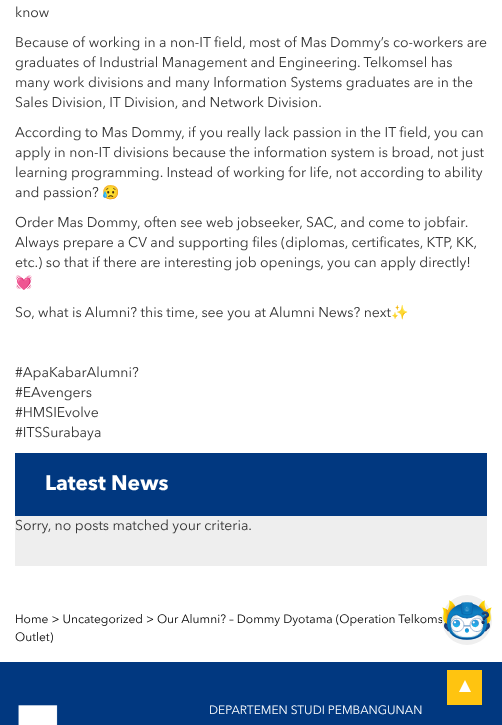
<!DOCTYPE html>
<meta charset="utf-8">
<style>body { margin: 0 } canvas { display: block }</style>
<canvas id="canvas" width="502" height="725"></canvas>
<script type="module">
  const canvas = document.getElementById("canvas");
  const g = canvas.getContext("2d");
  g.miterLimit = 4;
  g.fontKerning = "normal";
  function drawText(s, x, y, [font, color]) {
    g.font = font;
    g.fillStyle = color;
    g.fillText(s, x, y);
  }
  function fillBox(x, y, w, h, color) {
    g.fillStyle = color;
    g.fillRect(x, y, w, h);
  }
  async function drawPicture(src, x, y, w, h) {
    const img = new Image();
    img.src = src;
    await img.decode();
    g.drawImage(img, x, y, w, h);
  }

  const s1 = ["14px Avenir Next", "#333333"];
  const s2 = ["14px Noto Color Emoji", "#333333"];
  const s3 = ["bold 21px Avenir Next", "#FFFFFF"];
  const s4 = ["12px Avenir Next", "#000000"];
  const s5 = ["12px Avenir Next", "#FFFFFF"];

  fillBox(0, 0, 502, 725, "#FFFFFF");
  drawText("know", 15, 17, s1);
  drawText("Because of working in a non-IT field, most of Mas Dommy’s co-workers are", 15, 47, s1);
  drawText("graduates of Industrial Management and Engineering. Telkomsel has", 15, 67, s1);
  drawText("many work divisions and many Information Systems graduates are in the", 15, 87, s1);
  drawText("Sales Division, IT Division, and Network Division.", 15, 107, s1);
  drawText("According to Mas Dommy, if you really lack passion in the IT field, you can", 15, 137, s1);
  drawText("apply in non-IT divisions because the information system is broad, not just", 15, 157, s1);
  drawText("learning programming. Instead of working for life, not according to ability", 15, 177, s1);
  drawText("and passion?", 15, 197, s1);
  drawText("😥", 102, 197, s2);
  drawText("Order Mas Dommy, often see web jobseeker, SAC, and come to jobfair.", 15, 227, s1);
  drawText("Always prepare a CV and supporting files (diplomas, certificates, KTP, KK,", 15, 247, s1);
  drawText("etc.) so that if there are interesting job openings, you can apply directly!", 15, 267, s1);
  drawText("💓", 15, 287, s2);
  drawText("So, what is Alumni? this time, see you at Alumni News? next", 15, 317, s1);
  drawText("✨", 391, 317, s2);
  drawText("#ApaKabarAlumni?", 15, 377, s1);
  drawText("#EAvengers", 15, 397, s1);
  drawText("#HMSIEvolve", 15, 417, s1);
  drawText("#ITSSurabaya", 15, 437, s1);
  fillBox(15, 516, 472, 50, "#EEEEEE");
  fillBox(15, 453, 472, 63, "#013880");
  drawText("Latest News", 45, 490, s3);
  drawText("Sorry, no posts matched your criteria.", 15, 530, s1);
  drawText("Home > Uncategorized > Our Alumni? – Dommy Dyotama (Operation Telkoms", 15, 623, s4);
  drawText("Outlet)", 15, 641, s4);
  g.fillStyle = "#EFEFEF";
  g.beginPath();
  g.arc(467, 620, 25, 0, Math.PI * 2);
  g.fill();
  await drawPicture("pic1.png", 442, 600, 50, 40);
  fillBox(0, 662, 502, 63, "#013880");
  fillBox(447, 670, 35, 35, "#FFC410");
  g.fillStyle = "#FFFFFF";
  g.beginPath();
  g.moveTo(471, 692);
  g.lineTo(459, 692);
  g.lineTo(465, 680);
  g.closePath();
  g.fill();
  await drawPicture("pic2.png", 18, 705, 40, 20);
  drawText("DEPARTEMEN STUDI PEMBANGUNAN", 209, 714, s5);
</script>
